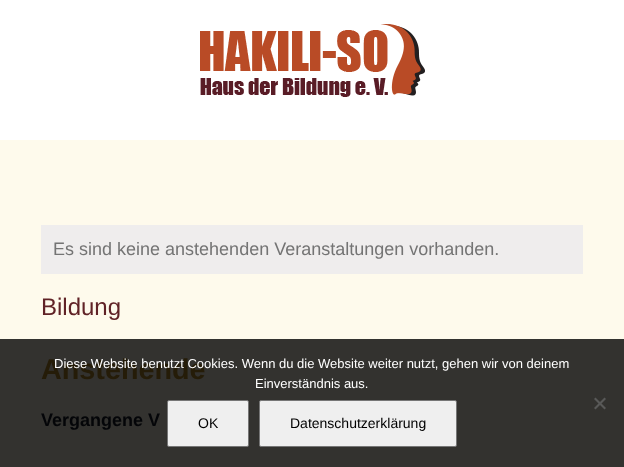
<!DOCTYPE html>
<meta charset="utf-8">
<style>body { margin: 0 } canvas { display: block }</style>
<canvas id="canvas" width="624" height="467"></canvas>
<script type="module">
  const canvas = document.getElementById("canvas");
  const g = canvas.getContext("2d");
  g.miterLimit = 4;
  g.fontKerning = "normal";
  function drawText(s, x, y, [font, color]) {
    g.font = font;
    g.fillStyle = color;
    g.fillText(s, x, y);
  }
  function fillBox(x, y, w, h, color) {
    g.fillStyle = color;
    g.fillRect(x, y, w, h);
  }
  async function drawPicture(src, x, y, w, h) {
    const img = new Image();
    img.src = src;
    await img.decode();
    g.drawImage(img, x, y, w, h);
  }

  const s1 = ["18px Liberation Sans", "#747474"];
  const s2 = ["24px Liberation Sans", "#602226"];
  const s3 = ["bold 28.75px Liberation Sans", "#251C08"];
  const s4 = ["bold 18px Liberation Sans", "#040508"];
  const s5 = ["13px Liberation Sans", "#FFFFFF"];
  const s6 = ["14px Liberation Sans", "#000000"];

  fillBox(0, 0, 624, 467, "#FFFFFF");
  await drawPicture("pic1.png", 200, 24, 225, 73);
  fillBox(0, 140, 624, 199, "#FEFAEC");
  fillBox(0, 339, 624, 128, "#33322F");
  fillBox(41, 225, 542, 49, "#EFEDED");
  drawText("Es sind keine anstehenden Veranstaltungen vorhanden.", 53, 255, s1);
  drawText("Bildung", 41, 315, s2);
  drawText("Anstehende", 41, 379, s3);
  drawText("Vergangene V", 41, 426, s4);
  drawText("Diese Website benutzt Cookies. Wenn du die Website weiter nutzt, gehen wir von deinem", 54, 368, s5);
  drawText("Einverständnis aus.", 255, 388, s5);
  g.fillStyle = "#595958";
  g.beginPath();
  g.moveTo(604.5, 397.5);
  g.lineTo(606, 399);
  g.lineTo(595.5, 409.5);
  g.lineTo(594, 408);
  g.closePath();
  g.fill();
  g.beginPath();
  g.moveTo(594, 399);
  g.lineTo(595.5, 397.5);
  g.lineTo(606, 408);
  g.lineTo(604.5, 409.5);
  g.closePath();
  g.fill();
  g.fillStyle = "#EFEFEF";
  g.beginPath();
  g.roundRect(167.5, 400.5, 81, 46, 1.5);
  g.fill();
  g.strokeStyle = "#767676";
  g.stroke();
  drawText("OK", 198, 428, s6);
  g.fillStyle = "#EFEFEF";
  g.beginPath();
  g.roundRect(259.5, 400.5, 197, 46, 1.5);
  g.fill();
  g.stroke();
  drawText("Datenschutzerklärung", 290, 428, s6);
</script>
